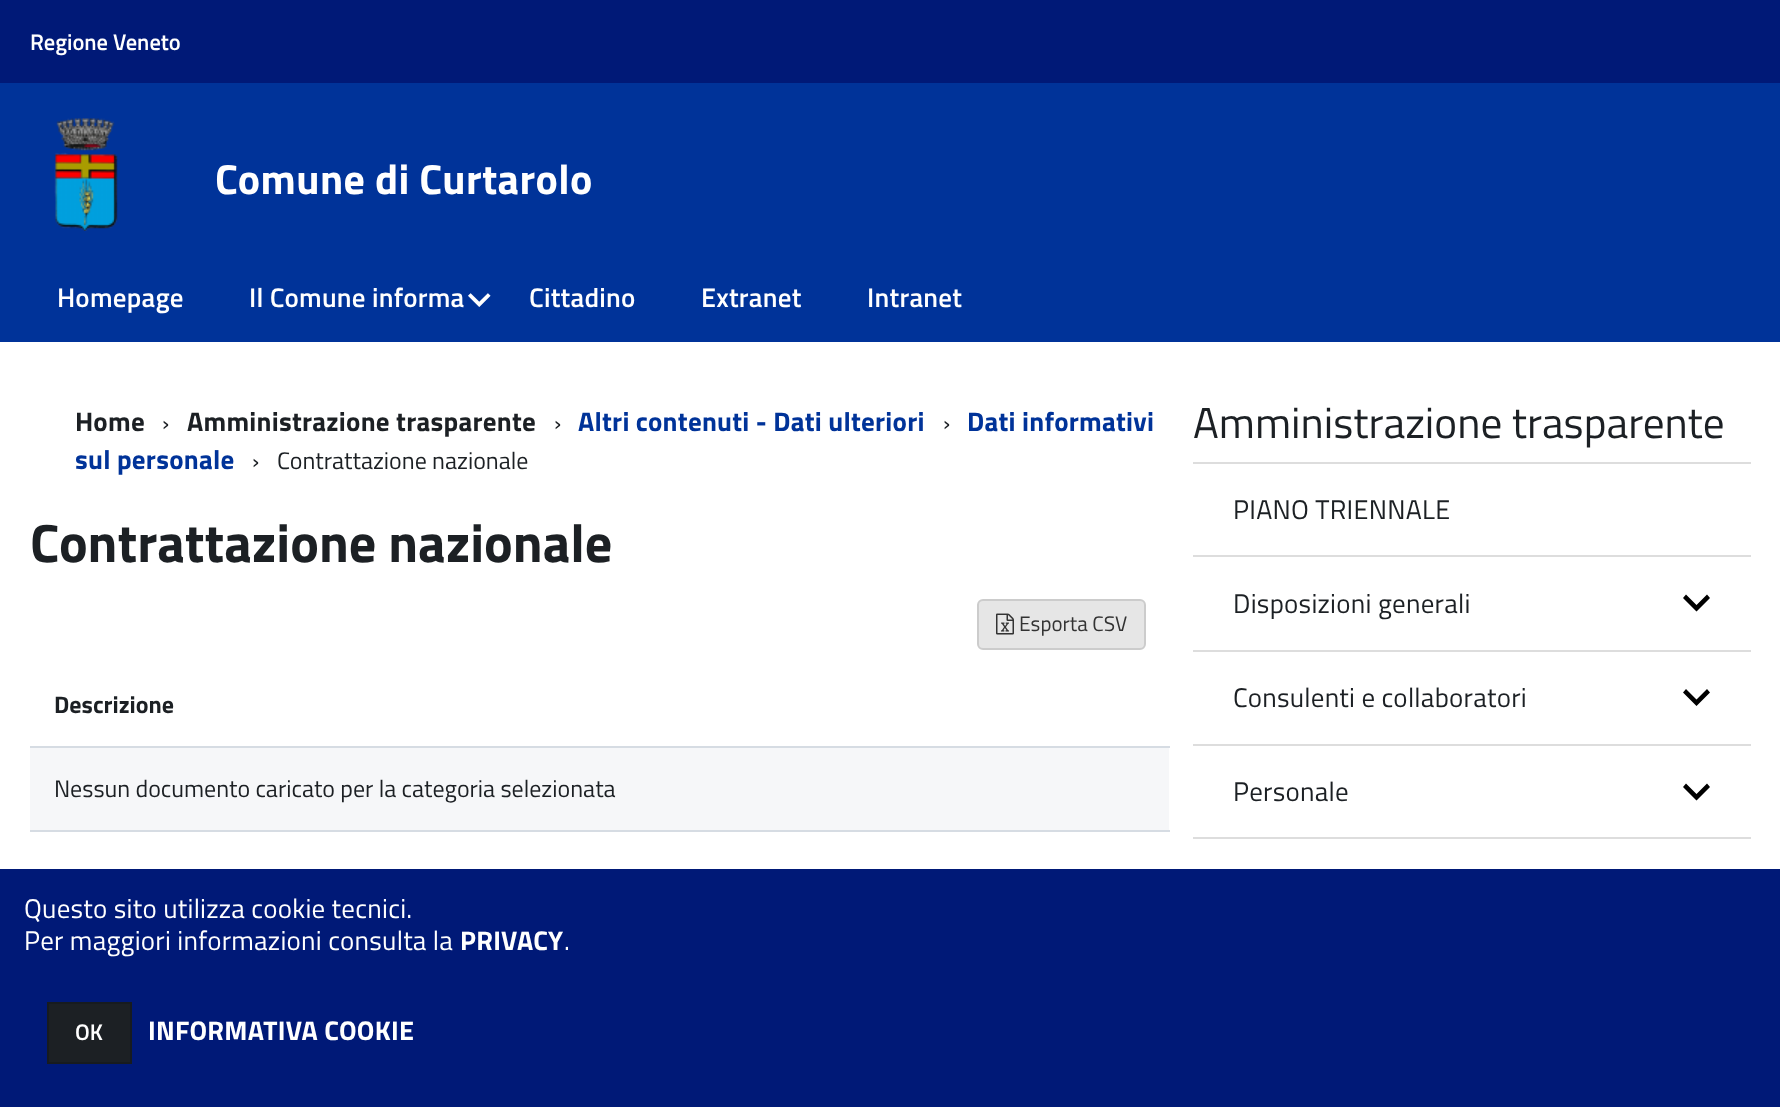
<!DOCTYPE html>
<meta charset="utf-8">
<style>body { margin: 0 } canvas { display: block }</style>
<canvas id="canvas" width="1780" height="1107"></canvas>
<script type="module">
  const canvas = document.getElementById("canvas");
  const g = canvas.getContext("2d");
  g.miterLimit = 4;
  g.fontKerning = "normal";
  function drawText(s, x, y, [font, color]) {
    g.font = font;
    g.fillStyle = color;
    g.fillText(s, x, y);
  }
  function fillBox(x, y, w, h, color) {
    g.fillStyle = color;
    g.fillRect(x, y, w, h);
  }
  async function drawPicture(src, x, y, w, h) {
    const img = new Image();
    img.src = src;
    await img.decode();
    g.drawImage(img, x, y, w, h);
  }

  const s1 = ["600 22.5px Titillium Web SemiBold", "#FFFFFF"];
  const s2 = ["bold 42px Titillium Web", "#FFFFFF"];
  const s3 = ["600 27px Titillium Web SemiBold", "#FFFFFF"];
  const s4 = ["22.5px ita", "#FFFFFF"];
  const s5 = ["bold 27px Titillium Web", "#1C2024"];
  const s6 = ["24px Titillium Web", "#1C2024"];
  const s7 = ["bold 27px Titillium Web", "#003399"];
  const s8 = ["bold 54px Titillium Web", "#1C2024"];
  const s9 = ["21px Titillium Web", "#333333"];
  const s10 = ["bold 24px Titillium Web", "#1C2024"];
  const s11 = ["43.25px Titillium Web", "#1C2024"];
  const s12 = ["27px Titillium Web", "#1C2024"];
  const s13 = ["27px Titillium Web", "#FFFFFF"];
  const s14 = ["bold 27px Titillium Web", "#FFFFFF"];

  fillBox(0, 0, 1780, 1107, "#FFFFFF");
  fillBox(0, 0, 1780, 83, "#001977");
  drawText("Regione Veneto", 30, 50, s1);
  fillBox(0, 83, 1780, 259, "#003399");
  await drawPicture("pic1.png", 54, 118, 64, 113);
  g.letterSpacing = "0.4px";
  drawText("Comune di Curtarolo", 215, 194, s2);
  g.letterSpacing = "0.25px";
  drawText("Homepage", 57, 307, s3);
  drawText("Il Comune informa", 249, 307, s3);
  drawText("⏶", 468, 310, s4);
  drawText("Cittadino", 529, 307, s3);
  drawText("Extranet", 701, 307, s3);
  drawText("Intranet", 867, 307, s3);
  drawText("Home", 75, 431, s5);
  g.letterSpacing = "0px";
  drawText("›", 162, 431, s6);
  g.letterSpacing = "0.25px";
  drawText("Amministrazione trasparente", 187, 431, s5);
  g.letterSpacing = "0px";
  drawText("›", 554, 431, s6);
  g.letterSpacing = "0.25px";
  drawText("Altri contenuti - Dati ulteriori", 578, 431, s7);
  g.letterSpacing = "0px";
  drawText("›", 943, 431, s6);
  g.letterSpacing = "0.25px";
  drawText("Dati informativi", 967, 431, s7);
  drawText("sul personale", 75, 469, s7);
  g.letterSpacing = "0px";
  drawText("›", 252, 469, s6);
  drawText("Contrattazione nazionale", 277, 469, s6);
  drawText("Contrattazione nazionale", 30, 562, s8);
  g.fillStyle = "#E6E6E6";
  g.beginPath();
  g.roundRect(978, 600, 167, 49, 5);
  g.fill();
  g.strokeStyle = "#CCCCCC";
  g.lineWidth = 2;
  g.stroke();
  await drawPicture("pic2.png", 996, 613, 18, 22);
  drawText("Esporta CSV", 1019, 631, s9);
  fillBox(30, 746, 1140, 2, "#D6DCE3");
  drawText("Descrizione", 54, 713, s10);
  fillBox(30, 748, 1139, 82, "#F6F7F9");
  fillBox(30, 830, 1140, 2, "#D6DCE3");
  drawText("Nessun documento caricato per la categoria selezionata", 54, 797, s6);
  drawText("Amministrazione trasparente", 1193, 438, s11);
  fillBox(1193, 462, 558, 2, "#DDDDDD");
  g.letterSpacing = "0.25px";
  drawText("PIANO TRIENNALE", 1233, 519, s12);
  fillBox(1193, 555, 558, 2, "#DDDDDD");
  drawText("Disposizioni generali", 1233, 613, s12);
  g.fillStyle = "#000000";
  g.beginPath();
  g.moveTo(1686, 594.5);
  g.lineTo(1683, 598);
  g.lineTo(1696.5, 611.5);
  g.lineTo(1710, 598);
  g.lineTo(1707, 594.5);
  g.lineTo(1696.5, 605);
  g.closePath();
  g.fill();
  fillBox(1193, 650, 558, 2, "#DDDDDD");
  drawText("Consulenti e collaboratori", 1233, 707, s12);
  g.fillStyle = "#000000";
  g.beginPath();
  g.moveTo(1686, 689);
  g.lineTo(1683, 692.5);
  g.lineTo(1696.5, 706);
  g.lineTo(1710, 692.5);
  g.lineTo(1707, 689);
  g.lineTo(1696.5, 699.5);
  g.closePath();
  g.fill();
  fillBox(1193, 744, 558, 2, "#DDDDDD");
  drawText("Personale", 1233, 801, s12);
  g.fillStyle = "#000000";
  g.beginPath();
  g.moveTo(1686, 783.5);
  g.lineTo(1683, 787);
  g.lineTo(1696.5, 800.5);
  g.lineTo(1710, 787);
  g.lineTo(1707, 783.5);
  g.lineTo(1696.5, 794);
  g.closePath();
  g.fill();
  fillBox(1193, 837, 558, 2, "#DDDDDD");
  fillBox(0, 869, 1780, 238, "#001977");
  drawText("Questo sito utilizza cookie tecnici.", 24, 918, s13);
  drawText("Per maggiori informazioni consulta la", 24, 950, s13);
  drawText("PRIVACY", 460, 950, s14);
  drawText(".", 564, 950, s13);
  g.fillStyle = "#1C2024";
  g.beginPath();
  g.rect(48, 1003, 83, 60);
  g.fill();
  g.strokeStyle = "#171B1F";
  g.stroke();
  g.letterSpacing = "0px";
  drawText("OK", 75, 1040, s1);
  g.letterSpacing = "0.25px";
  drawText("INFORMATIVA COOKIE", 148, 1040, s14);
</script>
